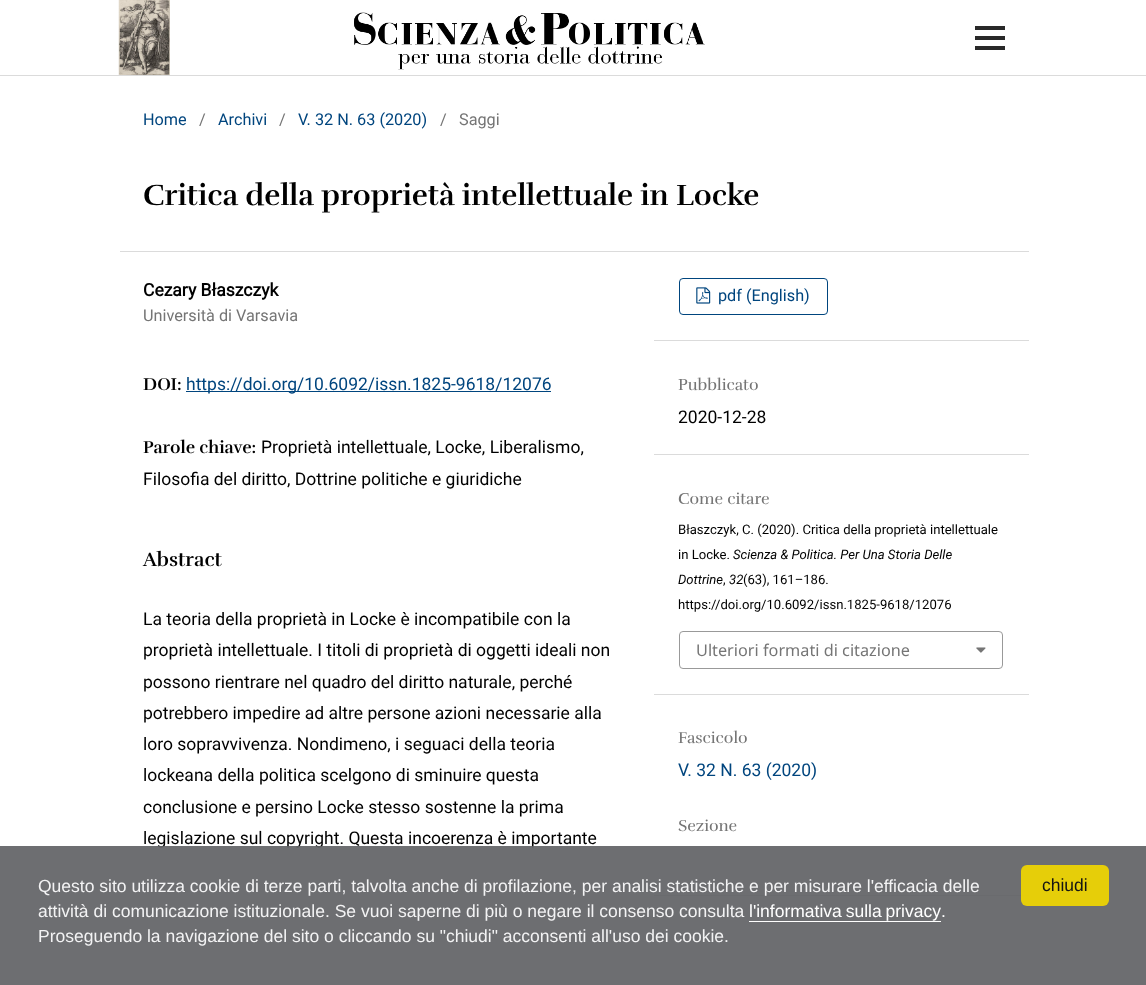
<!DOCTYPE html>
<meta charset="utf-8">
<style>body { margin: 0 } canvas { display: block }</style>
<canvas id="canvas" width="1146" height="985"></canvas>
<script type="module">
  const canvas = document.getElementById("canvas");
  const g = canvas.getContext("2d");
  g.miterLimit = 4;
  g.fontKerning = "normal";
  function drawText(s, x, y, [font, color]) {
    g.font = font;
    g.fillStyle = color;
    g.fillText(s, x, y);
  }
  function fillBox(x, y, w, h, color) {
    g.fillStyle = color;
    g.fillRect(x, y, w, h);
  }
  function fillRounded(x, y, w, h, r, color) {
    g.fillStyle = color;
    g.beginPath();
    g.roundRect(x, y, w, h, r);
    g.fill();
  }
  async function drawPicture(src, x, y, w, h) {
    const img = new Image();
    img.src = src;
    await img.decode();
    g.drawImage(img, x, y, w, h);
  }

  const s1 = ["16.25px Roboto", "#00457E"];
  const s2 = ["16.25px Roboto", "#757575"];
  const s3 = ["bold 30px Rufina", "#000000"];
  const s4 = ["bold 17.5px Roboto", "#000000"];
  const s5 = ["bold 17.5px Rufina", "#000000"];
  const s6 = ["17.5px Roboto", "#00457E"];
  const s7 = ["17.5px Roboto", "#000000"];
  const s8 = ["bold 20px Rufina", "#000000"];
  const s9 = ["16.25px Rufina", "#757575"];
  const s10 = ["13.1px Roboto", "#000000"];
  const s11 = ["italic 13.1px Roboto", "#000000"];
  const s12 = ["16.25px Noto Sans", "#757575"];
  const s13 = ["17.5px Liberation Sans", "#F3F3F4"];
  const s14 = ["17.5px Liberation Sans", "#FFFFFF"];
  const s15 = ["17.5px Liberation Sans", "#141414"];

  fillBox(0, 0, 1146, 985, "#FFFFFF");
  fillBox(0, 75, 1146, 1, "#DBDBDB");
  await drawPicture("pic1.png", 118, 0, 52, 75);
  await drawPicture("pic2.png", 354, 12, 351, 58);
  fillBox(975, 46, 30, 4, "#292929");
  fillBox(975, 26, 30, 4, "#292929");
  fillBox(975, 36, 30, 4, "#292929");
  fillBox(119, 251, 910, 1, "#DBDBDB");
  fillBox(119, 251, 1, 1, "#FFFFFF");
  drawText("Home", 143, 125, s1);
  drawText("/", 199, 125, s2);
  drawText("Archivi", 218, 125, s1);
  drawText("/", 279, 125, s2);
  drawText("V. 32 N. 63 (2020)", 298, 125, s1);
  drawText("/", 440, 125, s2);
  drawText("Saggi", 459, 125, s2);
  drawText("Critica della proprietà intellettuale in Locke", 143, 205, s3);
  drawText("Cezary Błaszczyk", 143, 296, s4);
  drawText("Università di Varsavia", 143, 321, s2);
  drawText("DOI:", 143, 390, s5);
  fillBox(186, 391, 365, 1, "#00457E");
  drawText("https://doi.org/10.6092/issn.1825-9618/12076", 186, 390, s6);
  drawText("Parole chiave:", 143, 453, s5);
  drawText("Proprietà intellettuale, Locke, Liberalismo,", 261, 453, s7);
  drawText("Filosofia del diritto, Dottrine politiche e giuridiche", 143, 485, s7);
  drawText("Abstract", 143, 566, s8);
  drawText("La teoria della proprietà in Locke è incompatibile con la", 143, 625, s7);
  drawText("proprietà intellettuale. I titoli di proprietà di oggetti ideali non", 143, 656, s7);
  drawText("possono rientrare nel quadro del diritto naturale, perché", 143, 688, s7);
  drawText("potrebbero impedire ad altre persone azioni necessarie alla", 143, 719, s7);
  drawText("loro sopravvivenza. Nondimeno, i seguaci della teoria", 143, 750, s7);
  drawText("lockeana della politica scelgono di sminuire questa", 143, 781, s7);
  drawText("conclusione e persino Locke stesso sostenne la prima", 143, 813, s7);
  drawText("legislazione sul copyright. Questa incoerenza è importante", 143, 844, s7);
  fillBox(654, 340, 375, 1, "#DBDBDB");
  g.beginPath();
  g.roundRect(679.5, 278.5, 148, 36, 3.5);
  g.strokeStyle = "#00457E";
  g.stroke();
  await drawPicture("pic3.png", 696, 287, 15, 17);
  drawText("pdf (English)", 718, 301, s1);
  fillBox(654, 454, 375, 1, "#DBDBDB");
  drawText("Pubblicato", 678, 390, s9);
  drawText("2020-12-28", 678, 423, s7);
  fillBox(654, 694, 375, 1, "#DBDBDB");
  drawText("Come citare", 678, 504, s9);
  drawText("Błaszczyk, C. (2020). Critica della proprietà intellettuale", 678, 534, s10);
  drawText("in Locke.", 678, 559, s10);
  drawText("Scienza & Politica. Per Una Storia Delle", 733, 559, s11);
  drawText("Dottrine", 678, 584, s11);
  drawText(",", 723, 584, s10);
  drawText("32", 729, 584, s11);
  drawText("(63), 161–186.", 743, 584, s10);
  drawText("https://doi.org/10.6092/issn.1825-9618/12076", 678, 609, s10);
  g.beginPath();
  g.roundRect(679.5, 631.5, 323, 37, 3.5);
  g.strokeStyle = "#999999";
  g.stroke();
  drawText("Ulteriori formati di citazione", 696, 656, s12);
  await drawPicture("pic4.png", 976, 647, 10, 6);
  fillBox(654, 895, 375, 1, "#DBDBDB");
  drawText("Fascicolo", 678, 743, s9);
  drawText("V. 32 N. 63 (2020)", 678, 776, s6);
  drawText("Sezione", 678, 831, s9);
  fillBox(0, 846, 1146, 139, "rgba(97, 98, 101, 0.92)");
  drawText("Questo sito utilizza cookie di terze parti, talvolta anche di profilazione, per analisi statistiche e per misurare l'efficacia delle", 38, 892, s13);
  drawText("attività di comunicazione istituzionale. Se vuoi saperne di più o negare il consenso consulta", 38, 917, s13);
  g.wordSpacing = "-1px";
  drawText("l'informativa sulla privacy", 749, 917, s14);
  fillBox(749, 921, 192, 1, "#FFFFFF");
  g.wordSpacing = "0px";
  drawText(".", 941, 917, s14);
  drawText("Proseguendo la navigazione del sito o cliccando su \"chiudi\" acconsenti all'uso dei cookie.", 38, 942, s13);
  fillRounded(1021, 865, 88, 41, 6, "rgba(241, 214, 0, 0.92)");
  drawText("chiudi", 1042, 891, s15);
</script>
